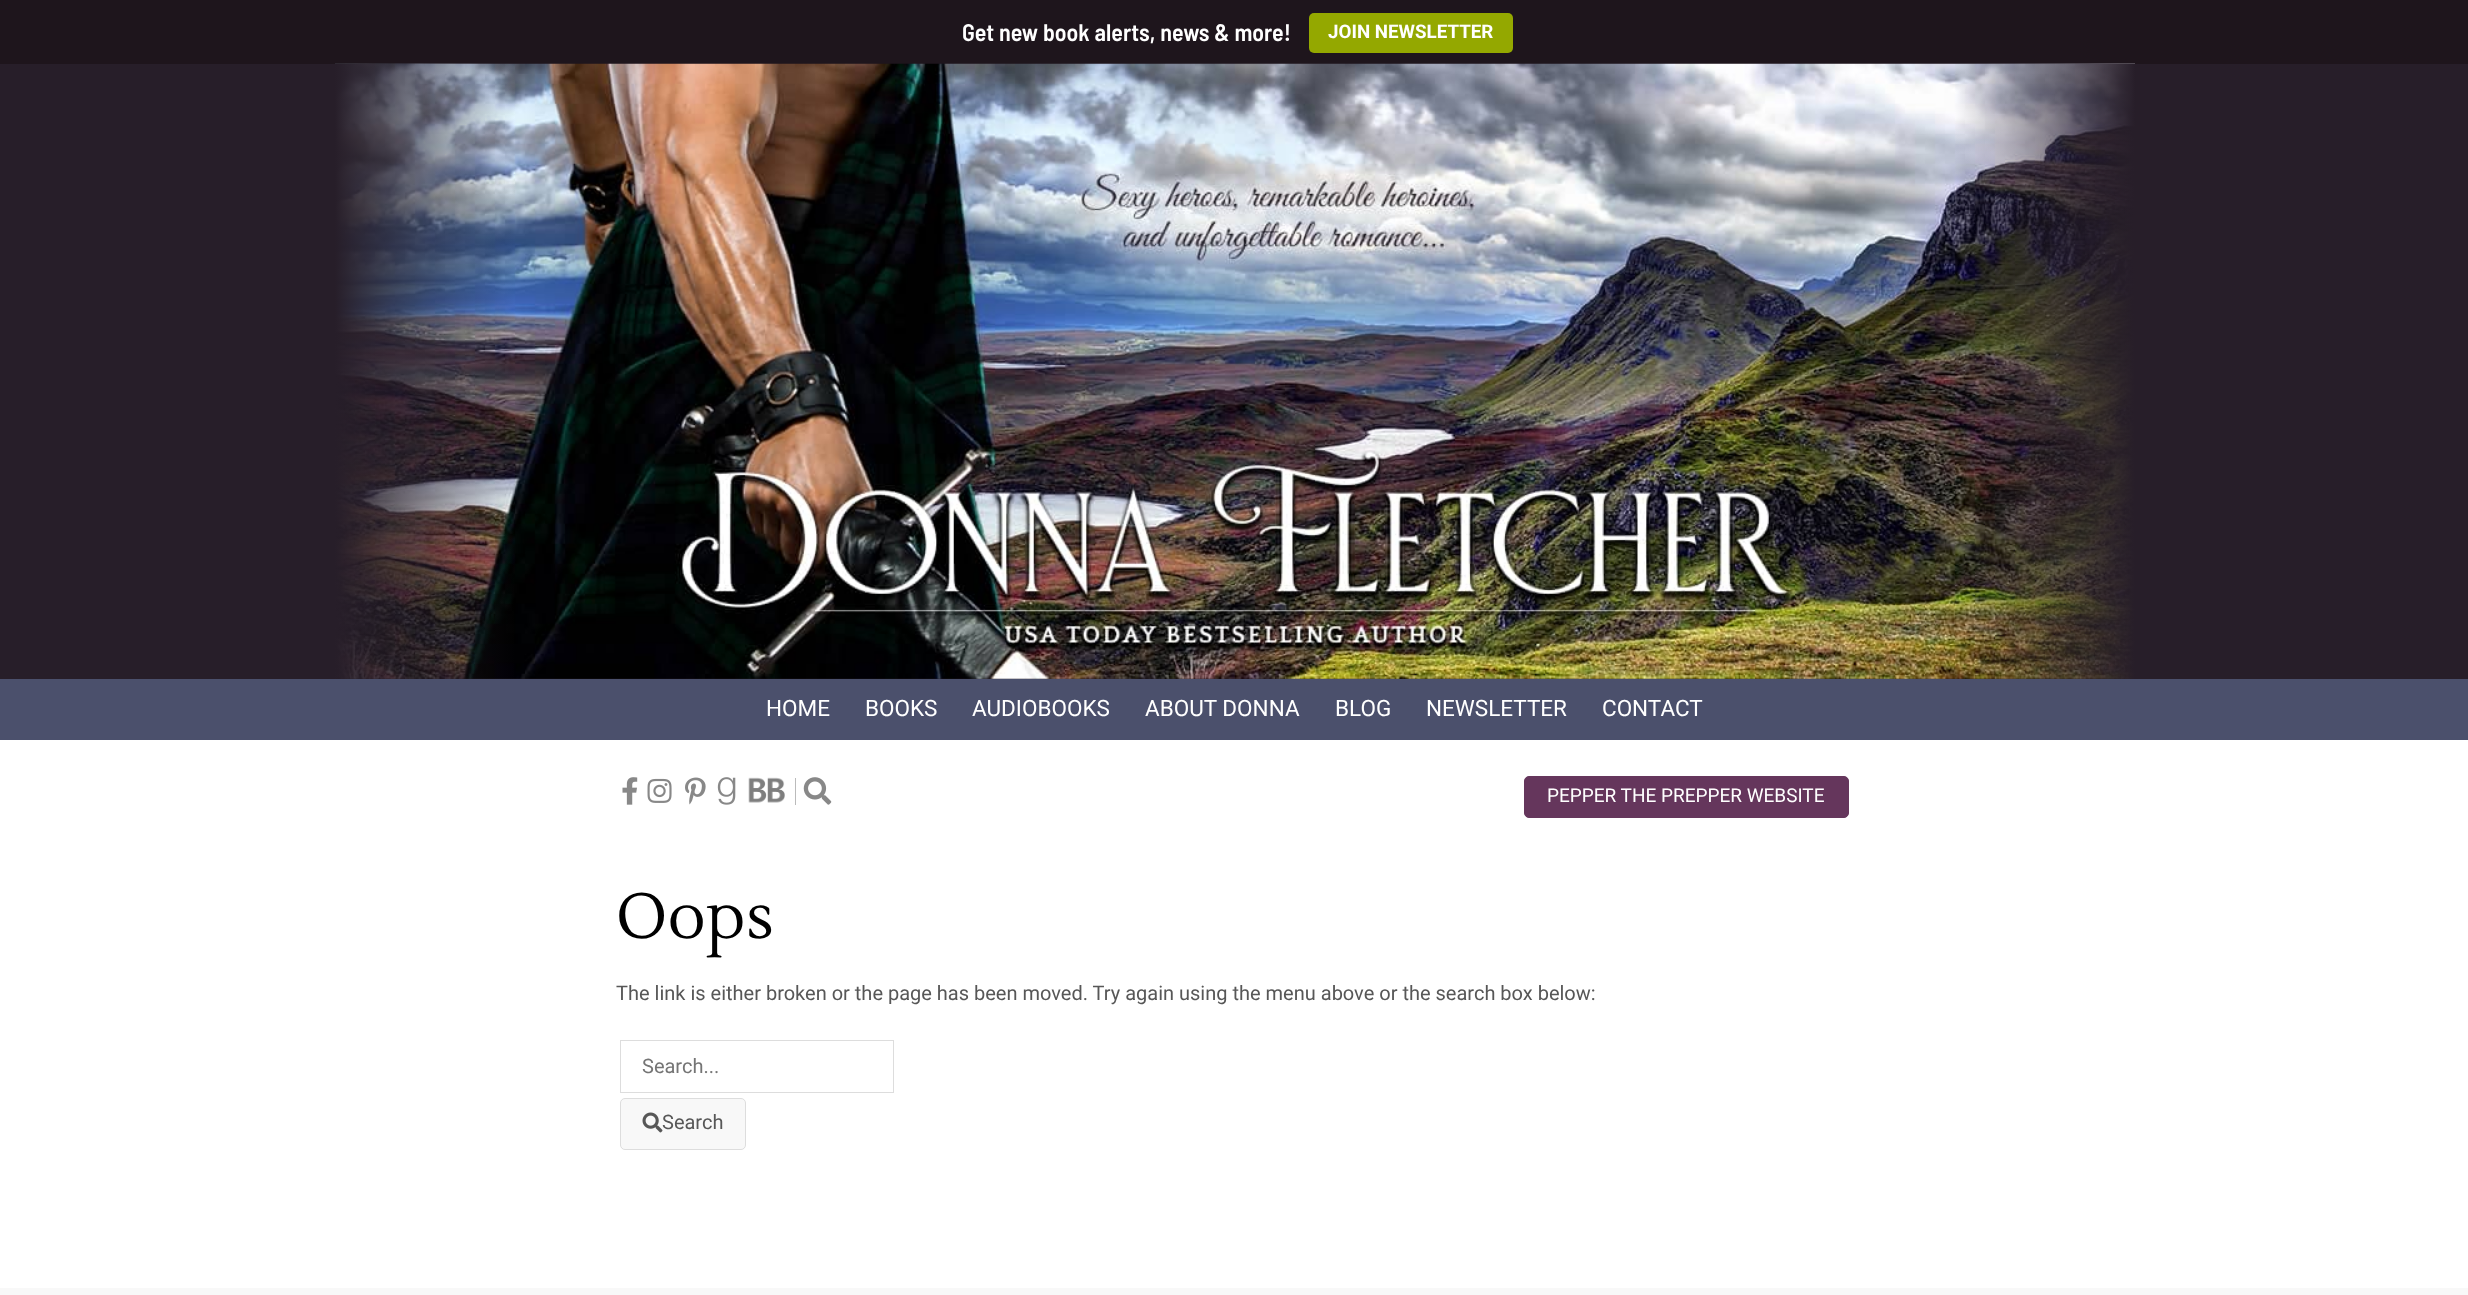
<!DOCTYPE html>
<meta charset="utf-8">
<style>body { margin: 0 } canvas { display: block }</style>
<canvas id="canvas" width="2468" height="1295"></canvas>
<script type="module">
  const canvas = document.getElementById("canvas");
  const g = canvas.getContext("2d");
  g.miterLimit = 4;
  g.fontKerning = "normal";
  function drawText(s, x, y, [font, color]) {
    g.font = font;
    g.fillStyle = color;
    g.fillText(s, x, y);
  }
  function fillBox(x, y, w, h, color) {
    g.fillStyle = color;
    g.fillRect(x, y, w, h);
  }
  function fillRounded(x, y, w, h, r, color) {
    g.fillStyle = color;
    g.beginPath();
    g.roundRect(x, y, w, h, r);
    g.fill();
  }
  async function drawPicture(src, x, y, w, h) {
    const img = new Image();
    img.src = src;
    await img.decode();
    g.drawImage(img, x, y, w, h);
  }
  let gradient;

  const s1 = ["600 24px Barlow Semi Condensed", "#FFFFFF"];
  const s2 = ["bold 18.75px Roboto", "#FFFFFF"];
  const s3 = ["22.5px Roboto", "#FFFFFF"];
  const s4 = ["19px Roboto", "#FFFFFF"];
  const s5 = ["64px Lustria", "#000000"];
  const s6 = ["20px Roboto", "#575757"];
  const s7 = ["20px Roboto", "#757575"];

  fillBox(0, 0, 2468, 1295, "#FFFFFF");
  fillBox(0, 0, 2468, 64, "#1E151C");
  drawText("Get new book alerts, news & more!", 962, 41, s1);
  fillRounded(1309, 13, 204, 40, 5, "#94A800");
  drawText("JOIN NEWSLETTER", 1328, 38, s2);
  fillBox(0, 64, 2468, 615, "#271E29");
  await drawPicture("pic1.png", 335, 63, 1800, 616);
  gradient = g.createLinearGradient(335, 371, 2135, 371);
  gradient.addColorStop(0, "#271E29");
  gradient.addColorStop(0.1, "rgba(39, 30, 41, 0)");
  gradient.addColorStop(0.9, "rgba(39, 30, 41, 0)");
  gradient.addColorStop(1, "#271E29");
  g.fillStyle = gradient;
  g.fillRect(335, 64, 1800, 615);
  fillBox(0, 679, 2468, 61, "#4B506C");
  drawText("HOME", 766, 716, s3);
  drawText("BOOKS", 865, 716, s3);
  drawText("AUDIOBOOKS", 972, 716, s3);
  drawText("ABOUT DONNA", 1145, 716, s3);
  drawText("BLOG", 1335, 716, s3);
  drawText("NEWSLETTER", 1426, 716, s3);
  drawText("CONTACT", 1602, 716, s3);
  await drawPicture("pic2.png", 622, 777, 16, 28);
  await drawPicture("pic3.png", 647, 778, 25, 25);
  await drawPicture("pic4.png", 685, 777, 21, 28);
  await drawPicture("pic5.png", 717, 777, 19, 28);
  await drawPicture("pic6.png", 748, 777, 37, 26);
  fillBox(795, 778, 1, 27, "#BBBBBB");
  await drawPicture("pic7.png", 803, 777, 29, 28);
  g.fillStyle = "#65365C";
  g.beginPath();
  g.roundRect(1524.5, 776.5, 324, 41, 4.5);
  g.fill();
  g.strokeStyle = "#65365C";
  g.stroke();
  drawText("PEPPER THE PREPPER WEBSITE", 1547, 802, s4);
  drawText("Oops", 616, 938, s5);
  drawText("The link is either broken or the page has been moved. Try again using the menu above or the search box below:", 616, 1000, s6);
  g.strokeStyle = "#DDDDDD";
  g.strokeRect(620.5, 1040.5, 273, 52);
  drawText("Search...", 642, 1073, s7);
  g.fillStyle = "#F8F8F8";
  g.beginPath();
  g.roundRect(620.5, 1098.5, 125, 51, 4.5);
  g.fill();
  g.stroke();
  await drawPicture("pic8.png", 642, 1112, 21, 21);
  drawText("Search", 662, 1129, s6);
  fillBox(0, 1288, 2468, 7, "#F8F8F8");
</script>
